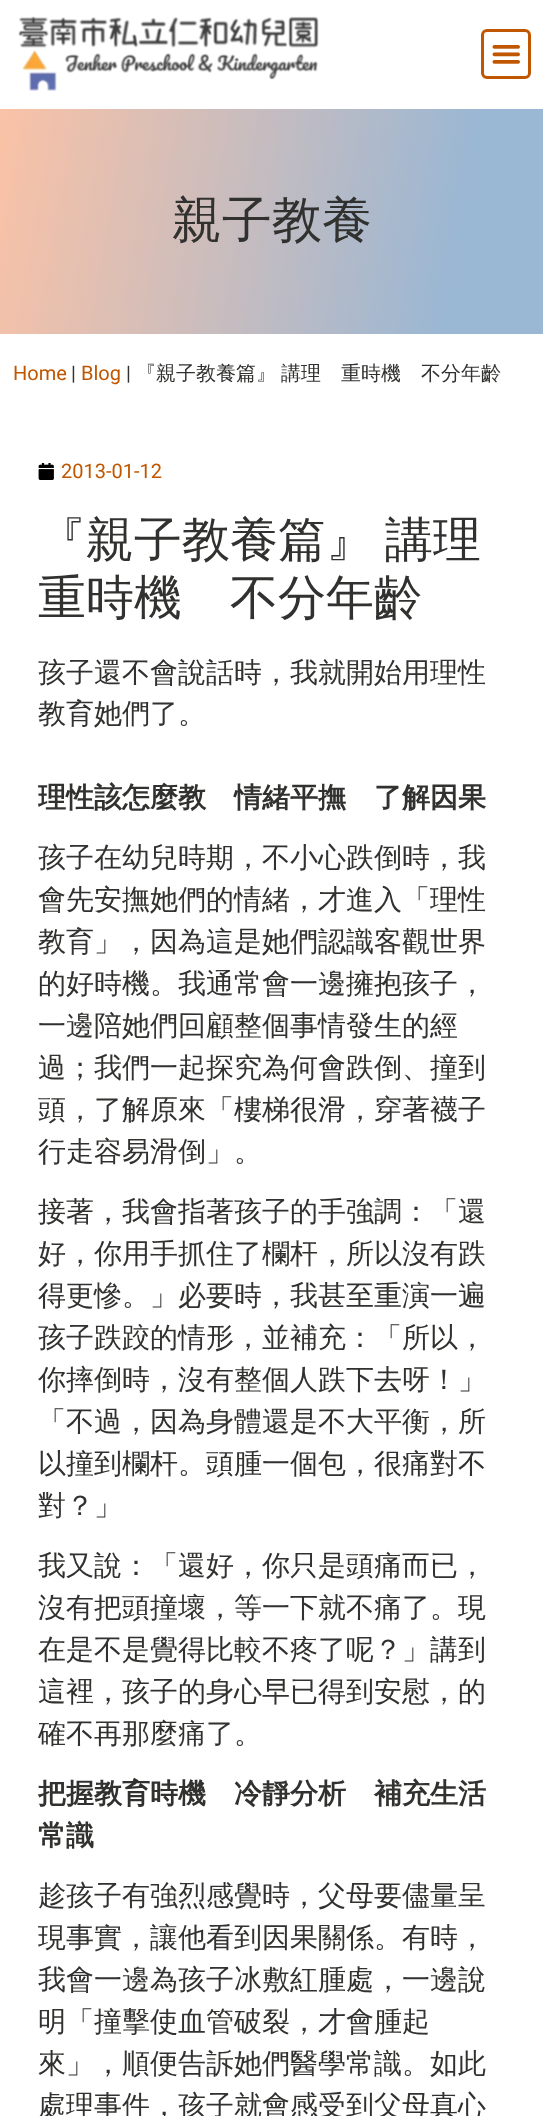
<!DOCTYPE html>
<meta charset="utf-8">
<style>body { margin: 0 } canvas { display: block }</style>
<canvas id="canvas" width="543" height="2116"></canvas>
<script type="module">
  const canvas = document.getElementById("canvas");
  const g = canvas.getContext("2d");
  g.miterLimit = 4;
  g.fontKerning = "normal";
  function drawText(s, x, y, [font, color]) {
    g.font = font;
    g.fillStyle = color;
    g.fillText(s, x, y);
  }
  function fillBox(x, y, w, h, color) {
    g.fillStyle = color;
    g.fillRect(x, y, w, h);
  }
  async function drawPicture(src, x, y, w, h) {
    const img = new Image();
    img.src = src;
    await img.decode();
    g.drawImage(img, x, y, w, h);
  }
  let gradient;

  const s1 = ["500 50px WenQuanYi Zen Hei", "#31322F"];
  const s2 = ["20px Roboto", "#C05700"];
  const s3 = ["20px Roboto", "#31322F"];
  const s4 = ["500 20px WenQuanYi Zen Hei", "#31322F"];
  const s5 = ["500 48px WenQuanYi Zen Hei", "#31322F"];
  const s6 = ["500 28px WenQuanYi Zen Hei", "#31322F"];
  const s7 = ["bold 28px WenQuanYi Zen Hei", "#31322F"];

  fillBox(0, 0, 543, 2116, "#FFFFFF");
  await drawPicture("pic1.png", 18, 16, 301, 75);
  g.beginPath();
  g.roundRect(482.5, 30.5, 47, 47, 4.5);
  g.strokeStyle = "#C05700";
  g.lineWidth = 3;
  g.stroke();
  await drawPicture("pic2.png", 492, 45, 28, 19);
  gradient = g.createLinearGradient(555, 271, -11, 171);
  gradient.addColorStop(0.17, "#9AB7D4");
  gradient.addColorStop(1, "#FAC2A6");
  g.fillStyle = gradient;
  g.fillRect(0, 109, 543, 225);
  drawText("親子教養", 172, 237, s1);
  drawText("Home", 13, 380, s2);
  drawText("|", 71, 380, s3);
  drawText("Blog", 81, 380, s2);
  drawText("|", 126, 380, s3);
  drawText("『親子教養篇』", 136, 380, s4);
  drawText("講理　重時機　不分年齡", 281, 380, s4);
  await drawPicture("pic3.png", 38, 463, 16, 17);
  drawText("2013-01-12", 61, 478, s2);
  drawText("『親子教養篇』", 38, 556, s5);
  drawText("講理", 385, 556, s5);
  drawText("重時機　不分年齡", 38, 614, s5);
  drawText("孩子還不會說話時，我就開始用理性", 38, 682, s6);
  drawText("教育她們了。", 38, 723, s6);
  drawText("理性該怎麼教　情緒平撫　了解因果", 38, 807, s7);
  drawText("孩子在幼兒時期，不小心跌倒時，我", 38, 867, s6);
  drawText("會先安撫她們的情緒，才進入「理性", 38, 909, s6);
  drawText("教育」，因為這是她們認識客觀世界", 38, 951, s6);
  drawText("的好時機。我通常會一邊擁抱孩子，", 38, 993, s6);
  drawText("一邊陪她們回顧整個事情發生的經", 38, 1035, s6);
  drawText("過；我們一起探究為何會跌倒、撞到", 38, 1077, s6);
  drawText("頭，了解原來「樓梯很滑，穿著襪子", 38, 1119, s6);
  drawText("行走容易滑倒」。", 38, 1161, s6);
  drawText("接著，我會指著孩子的手強調：「還", 38, 1221, s6);
  drawText("好，你用手抓住了欄杆，所以沒有跌", 38, 1263, s6);
  drawText("得更慘。」必要時，我甚至重演一遍", 38, 1305, s6);
  drawText("孩子跌跤的情形，並補充：「所以，", 38, 1347, s6);
  drawText("你摔倒時，沒有整個人跌下去呀！」", 38, 1389, s6);
  drawText("「不過，因為身體還是不大平衡，所", 38, 1431, s6);
  drawText("以撞到欄杆。頭腫一個包，很痛對不", 38, 1473, s6);
  drawText("對？」", 38, 1515, s6);
  drawText("我又說：「還好，你只是頭痛而已，", 38, 1575, s6);
  drawText("沒有把頭撞壞，等一下就不痛了。現", 38, 1617, s6);
  drawText("在是不是覺得比較不疼了呢？」講到", 38, 1659, s6);
  drawText("這裡，孩子的身心早已得到安慰，的", 38, 1701, s6);
  drawText("確不再那麼痛了。", 38, 1743, s6);
  drawText("把握教育時機　冷靜分析　補充生活", 38, 1803, s7);
  drawText("常識", 38, 1845, s7);
  drawText("趁孩子有強烈感覺時，父母要儘量呈", 38, 1905, s6);
  drawText("現事實，讓他看到因果關係。有時，", 38, 1947, s6);
  drawText("我會一邊為孩子冰敷紅腫處，一邊說", 38, 1989, s6);
  drawText("明「撞擊使血管破裂，才會腫起", 38, 2031, s6);
  drawText("來」，順便告訴她們醫學常識。如此", 38, 2073, s6);
  drawText("處理事件，孩子就會感受到父母真心", 38, 2115, s6);
</script>
